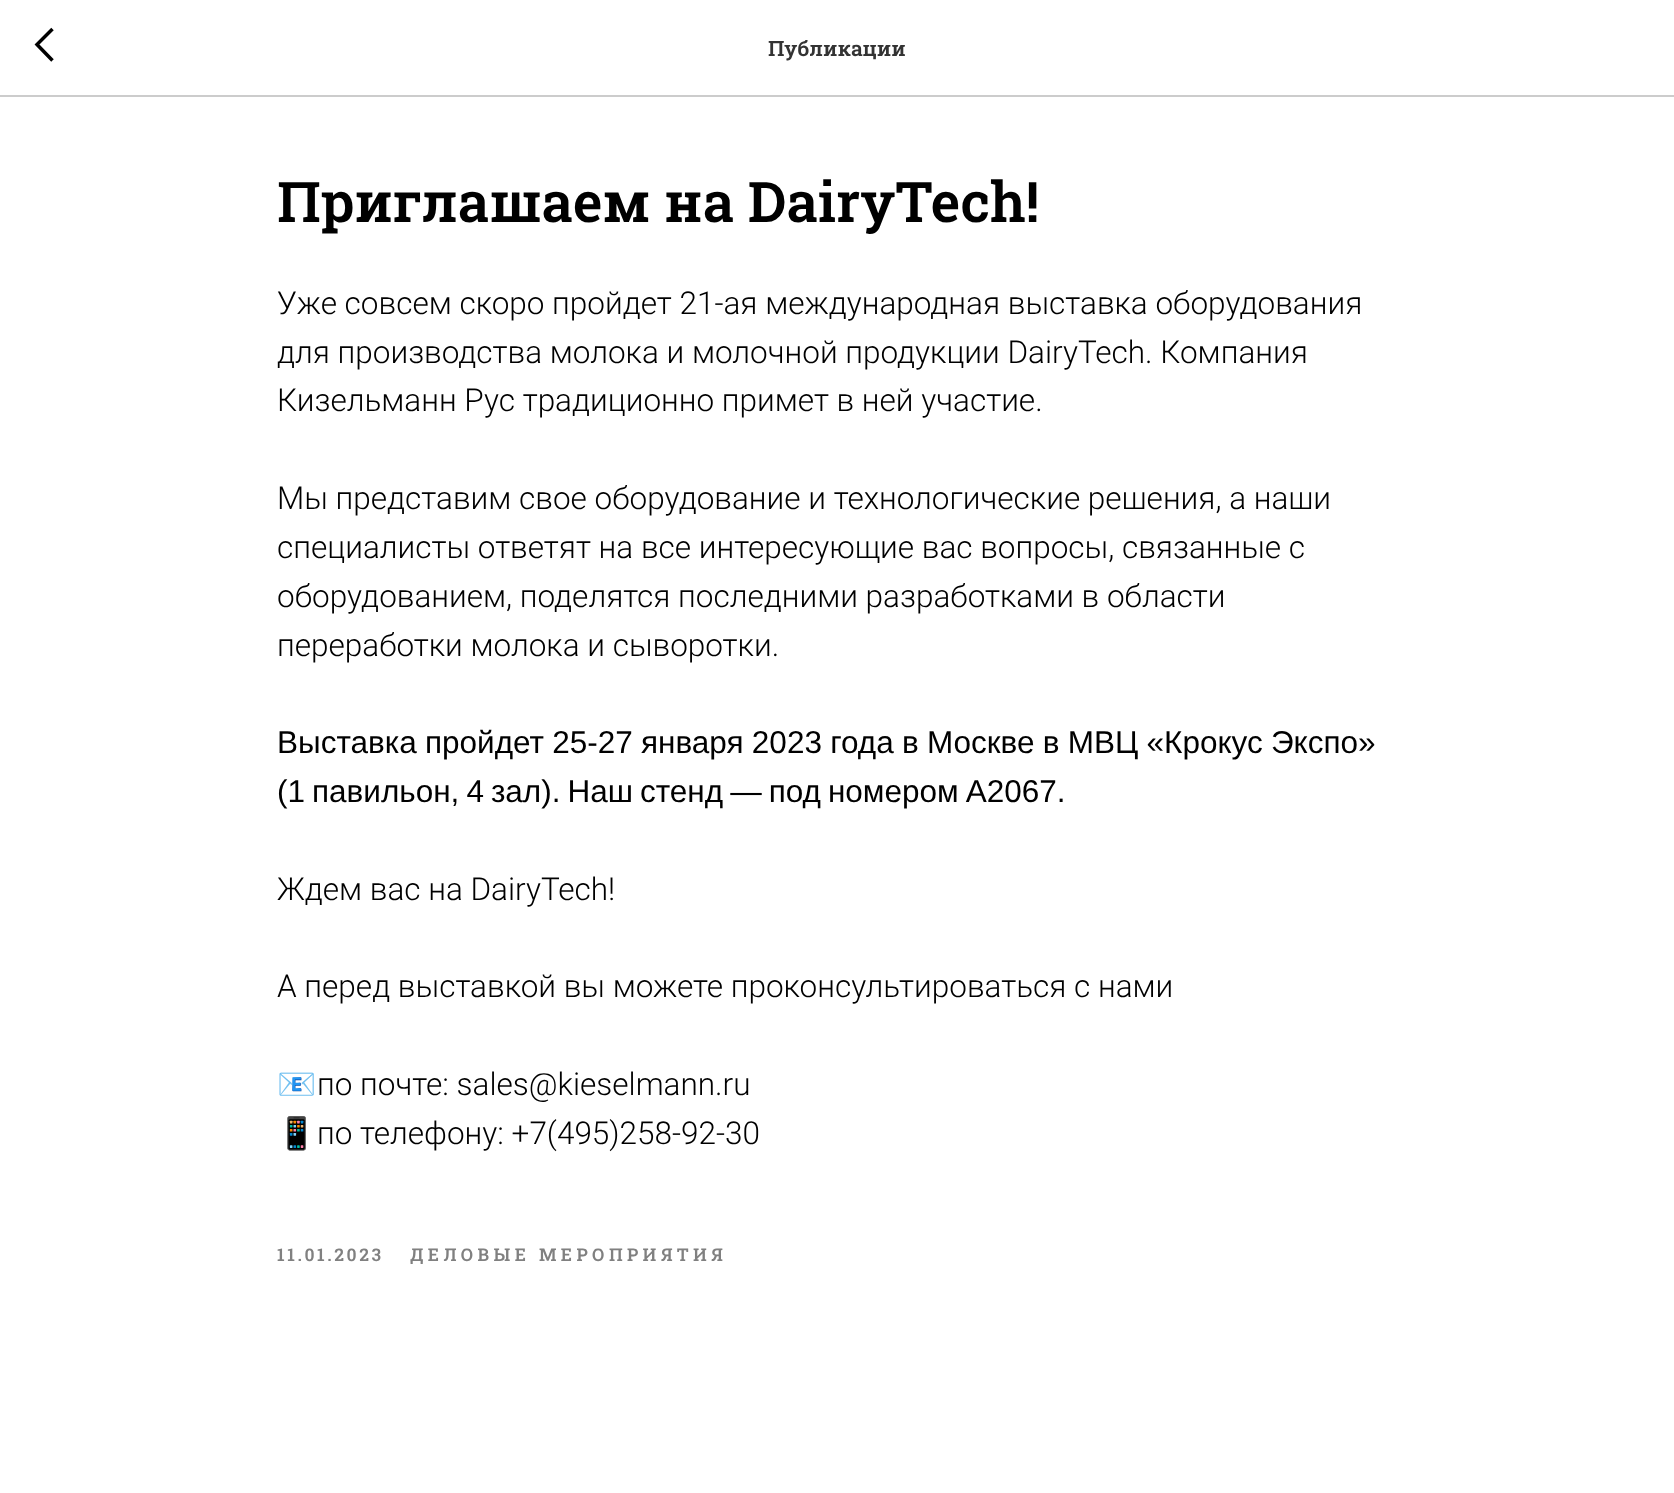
<!DOCTYPE html>
<meta charset="utf-8">
<style>body { margin: 0 } canvas { display: block }</style>
<canvas id="canvas" width="1674" height="1493"></canvas>
<script type="module">
  const canvas = document.getElementById("canvas");
  const g = canvas.getContext("2d");
  g.miterLimit = 4;
  g.fontKerning = "normal";
  function drawText(s, x, y, [font, color]) {
    g.font = font;
    g.fillStyle = color;
    g.fillText(s, x, y);
  }
  function fillBox(x, y, w, h, color) {
    g.fillStyle = color;
    g.fillRect(x, y, w, h);
  }

  const s1 = ["600 21px Roboto Slab", "#333333"];
  const s2 = ["600 56px Roboto Slab", "#000000"];
  const s3 = ["300 31.5px Roboto", "#000000"];
  const s4 = ["31.5px Liberation Sans", "#000000"];
  const s5 = ["31.5px Noto Color Emoji", "#000000"];
  const s6 = ["600 17.5px Roboto Slab", "#808080"];

  fillBox(0, 0, 1674, 1493, "#FFFFFF");
  fillBox(0, 95, 1674, 2, "#CCCCCC");
  g.beginPath();
  g.moveTo(52.5, 60.5);
  g.lineTo(37, 44.5);
  g.lineTo(52.5, 29);
  g.strokeStyle = "#000000";
  g.lineWidth = 3.5;
  g.stroke();
  drawText("Публикации", 768, 56, s1);
  drawText("Приглашаем на DairyTech!", 277, 222, s2);
  drawText("Уже совсем скоро пройдет 21-ая международная выставка оборудования", 277, 314, s3);
  drawText("для производства молока и молочной продукции DairyTech. Компания", 277, 363, s3);
  drawText("Кизельманн Рус традиционно примет в ней участие.", 277, 411, s3);
  drawText("Мы представим свое оборудование и технологические решения, а наши", 277, 509, s3);
  drawText("специалисты ответят на все интересующие вас вопросы, связанные с", 277, 558, s3);
  drawText("оборудованием, поделятся последними разработками в области", 277, 607, s3);
  drawText("переработки молока и сыворотки.", 277, 656, s3);
  g.wordSpacing = "-0.5px";
  drawText("Выставка пройдет 25-27 января 2023 года в Москве в МВЦ «Крокус Экспо»", 277, 753, s4);
  g.wordSpacing = "-1.75px";
  drawText("(1 павильон, 4 зал). Наш стенд ― под номером А2067.", 277, 802, s4);
  g.wordSpacing = "0px";
  drawText("Ждем вас на DairyTech!", 277, 900, s3);
  drawText("А перед выставкой вы можете проконсультироваться с нами", 277, 997, s3);
  drawText("📧", 277, 1095, s5);
  drawText("по почте: sales@kieselmann.ru", 317, 1095, s3);
  drawText("📱", 277, 1144, s5);
  drawText("по телефону: +7(495)258-92-30", 317, 1144, s3);
  g.letterSpacing = "2.6px";
  drawText("11.01.2023", 277, 1261, s6);
  g.letterSpacing = "4.4px";
  drawText("ДЕЛОВЫЕ МЕРОПРИЯТИЯ", 410, 1261, s6);
</script>
